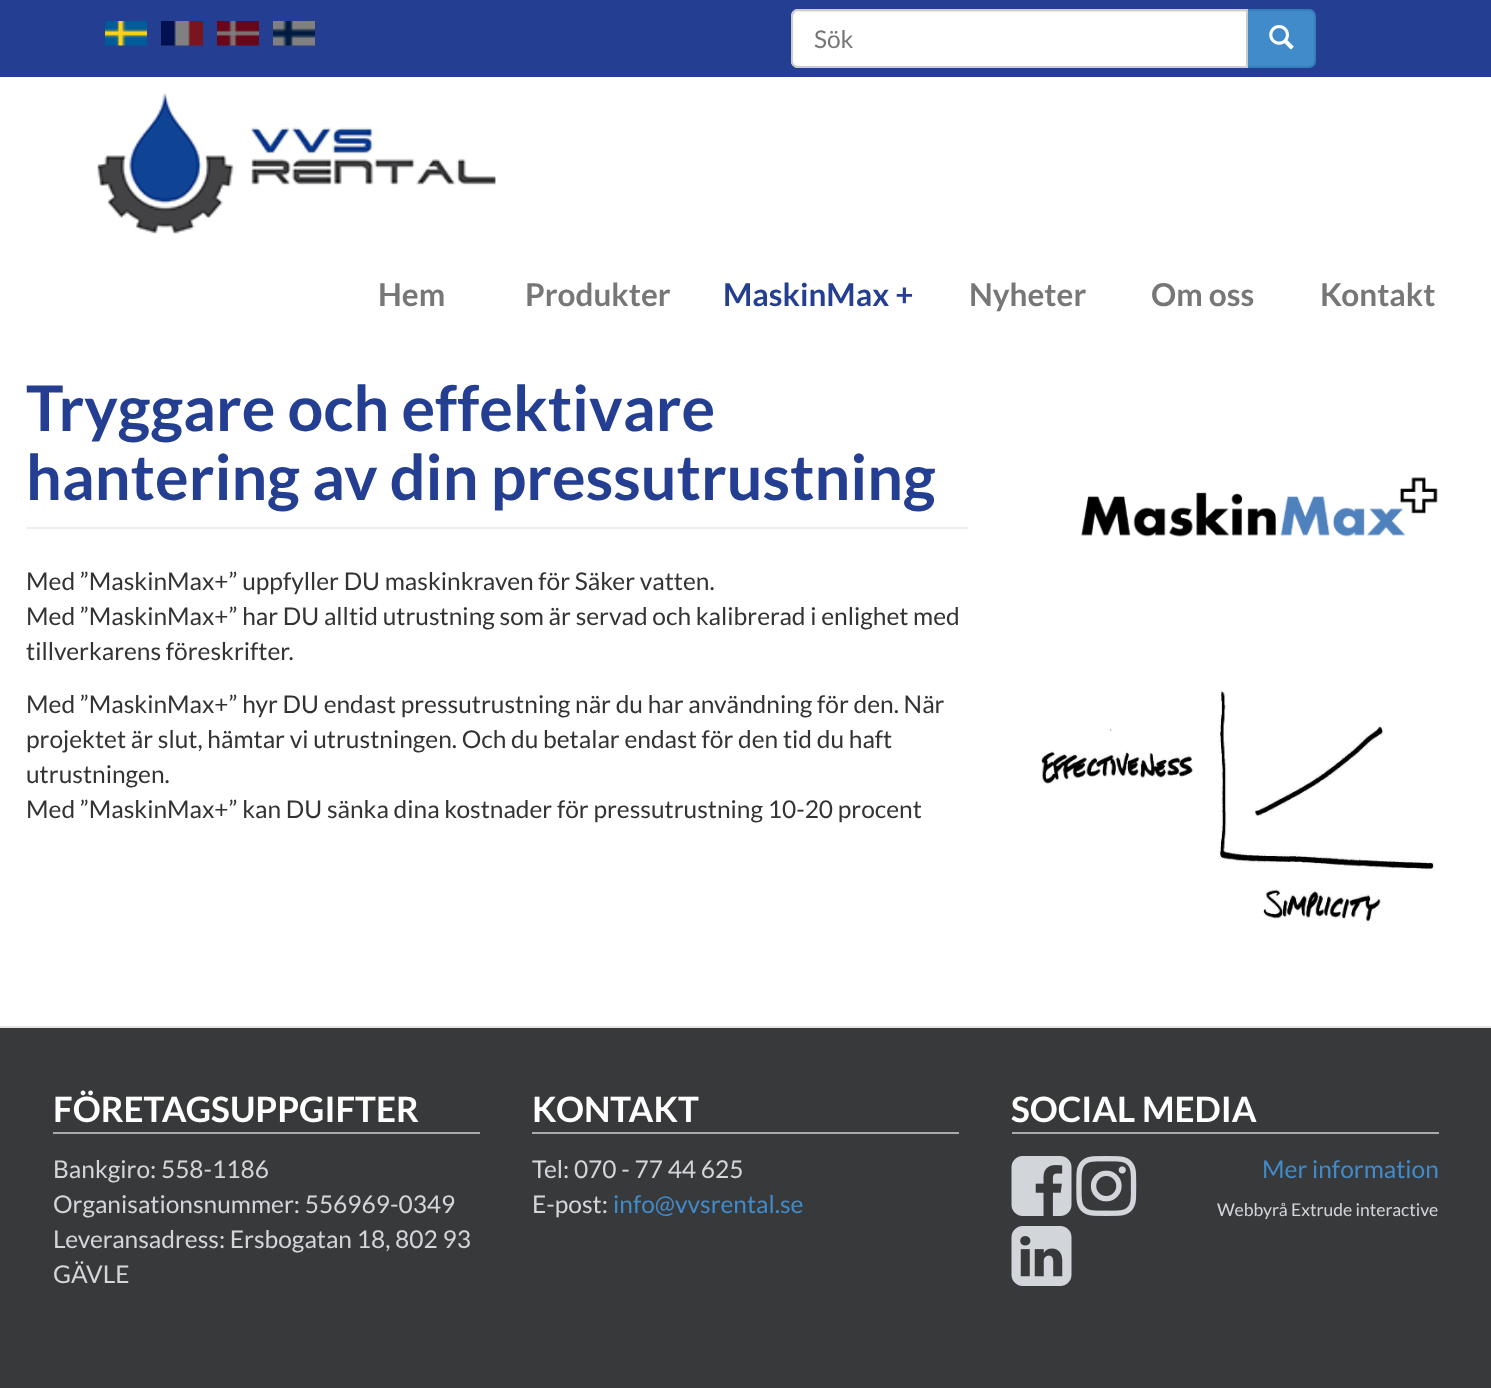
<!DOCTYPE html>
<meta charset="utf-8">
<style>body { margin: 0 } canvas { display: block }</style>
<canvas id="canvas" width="1491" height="1388"></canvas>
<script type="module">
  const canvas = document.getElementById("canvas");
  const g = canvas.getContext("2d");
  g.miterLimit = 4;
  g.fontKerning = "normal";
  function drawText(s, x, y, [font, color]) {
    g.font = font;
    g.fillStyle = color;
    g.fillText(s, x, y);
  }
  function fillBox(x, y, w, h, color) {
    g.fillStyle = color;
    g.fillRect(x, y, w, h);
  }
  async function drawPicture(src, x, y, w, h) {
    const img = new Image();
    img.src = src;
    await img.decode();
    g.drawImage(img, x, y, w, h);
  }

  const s1 = ["24.5px Lato", "#777777"];
  const s2 = ["bold 31.5px Lato", "#777777"];
  const s3 = ["bold 31.5px Lato", "#243E92"];
  const s4 = ["bold 63px Lato", "#243E92"];
  const s5 = ["24.5px Lato", "#333333"];
  const s6 = ["bold 35px Lato", "#FFFFFF"];
  const s7 = ["24.5px Lato", "#D2D6DB"];
  const s8 = ["24.5px Lato", "#428BCA"];
  const s9 = ["17.5px Lato", "#D2D6DB"];

  fillBox(0, 0, 1491, 1388, "#38393A");
  fillBox(0, 77, 1491, 949, "#FFFFFF");
  fillBox(0, 0, 1491, 77, "#243E92");
  g.fillStyle = "#428BCA";
  g.beginPath();
  g.roundRect(1247, 10, 68, 57, [0, 6, 6, 0]);
  g.fill();
  g.strokeStyle = "#357EBD";
  g.lineWidth = 2;
  g.stroke();
  g.fillStyle = "#FFFFFF";
  g.beginPath();
  g.roundRect(791, 9, 457, 59, [7, 0, 0, 7]);
  g.fill();
  g.fillStyle = "#ECECEC";
  g.beginPath();
  g.moveTo(798, 12);
  g.lineTo(1246, 12);
  g.lineTo(1246, 11);
  g.lineTo(798, 11);
  g.bezierCurveTo(794, 11, 793, 15, 793, 18);
  g.bezierCurveTo(793, 15, 795, 12, 798, 12);
  g.closePath();
  g.fill();
  g.beginPath();
  g.roundRect(792, 10, 455, 57, [6, 0, 0, 6]);
  g.strokeStyle = "#CCCCCC";
  g.stroke();
  drawText("Sök", 814, 48, s1);
  await drawPicture("pic1.png", 1269, 25, 25, 25);
  await drawPicture("pic2.png", 97, 92, 399, 142);
  await drawPicture("pic3.png", 105, 21, 42, 25);
  await drawPicture("pic4.png", 161, 21, 42, 25);
  await drawPicture("pic5.png", 217, 21, 42, 25);
  await drawPicture("pic6.png", 273, 21, 42, 25);
  drawText("Hem", 378, 306, s2);
  drawText("Produkter", 525, 306, s2);
  drawText("MaskinMax +", 723, 306, s3);
  drawText("Nyheter", 969, 306, s2);
  drawText("Om oss", 1151, 306, s2);
  drawText("Kontakt", 1320, 306, s2);
  fillBox(26, 527, 942, 2, "#EEEEEE");
  drawText("Tryggare och effektivare", 26, 431, s4);
  drawText("hantering av din pressutrustning", 26, 500, s4);
  drawText("Med ”MaskinMax+” uppfyller DU maskinkraven för Säker vatten.", 26, 590, s5);
  drawText("Med ”MaskinMax+” har DU alltid utrustning som är servad och kalibrerad i enlighet med", 26, 625, s5);
  drawText("tillverkarens föreskrifter.", 26, 660, s5);
  drawText("Med ”MaskinMax+” hyr DU endast pressutrustning när du har användning för den. När", 26, 713, s5);
  drawText("projektet är slut, hämtar vi utrustningen. Och du betalar endast för den tid du haft", 26, 748, s5);
  drawText("utrustningen.", 26, 783, s5);
  drawText("Med ”MaskinMax+” kan DU sänka dina kostnader för pressutrustning 10-20 procent", 26, 818, s5);
  await drawPicture("pic7.png", 1081, 477, 357, 60);
  await drawPicture("pic8.png", 1041, 690, 394, 232);
  fillBox(0, 1026, 1491, 2, "#E5E5E5");
  fillBox(53, 1132, 427, 2, "#AAAAAA");
  drawText("FÖRETAGSUPPGIFTER", 53, 1122, s6);
  drawText("Bankgiro: 558-1186", 53, 1178, s7);
  drawText("Organisationsnummer: 556969-0349", 53, 1213, s7);
  drawText("Leveransadress: Ersbogatan 18, 802 93", 53, 1248, s7);
  drawText("GÄVLE", 53, 1283, s7);
  fillBox(532, 1132, 427, 2, "#AAAAAA");
  drawText("KONTAKT", 532, 1122, s6);
  drawText("Tel: 070 - 77 44 625", 532, 1178, s7);
  drawText("E-post:", 532, 1213, s7);
  drawText("info@vvsrental.se", 613, 1213, s8);
  fillBox(1012, 1132, 427, 2, "#AAAAAA");
  drawText("SOCIAL MEDIA", 1011, 1122, s6);
  await drawPicture("pic9.png", 1011, 1156, 61, 60);
  await drawPicture("pic10.png", 1076, 1156, 61, 60);
  await drawPicture("pic11.png", 1011, 1226, 61, 60);
  drawText("Mer information", 1262, 1178, s8);
  drawText("Webbyrå Extrude interactive", 1217, 1216, s9);
</script>
